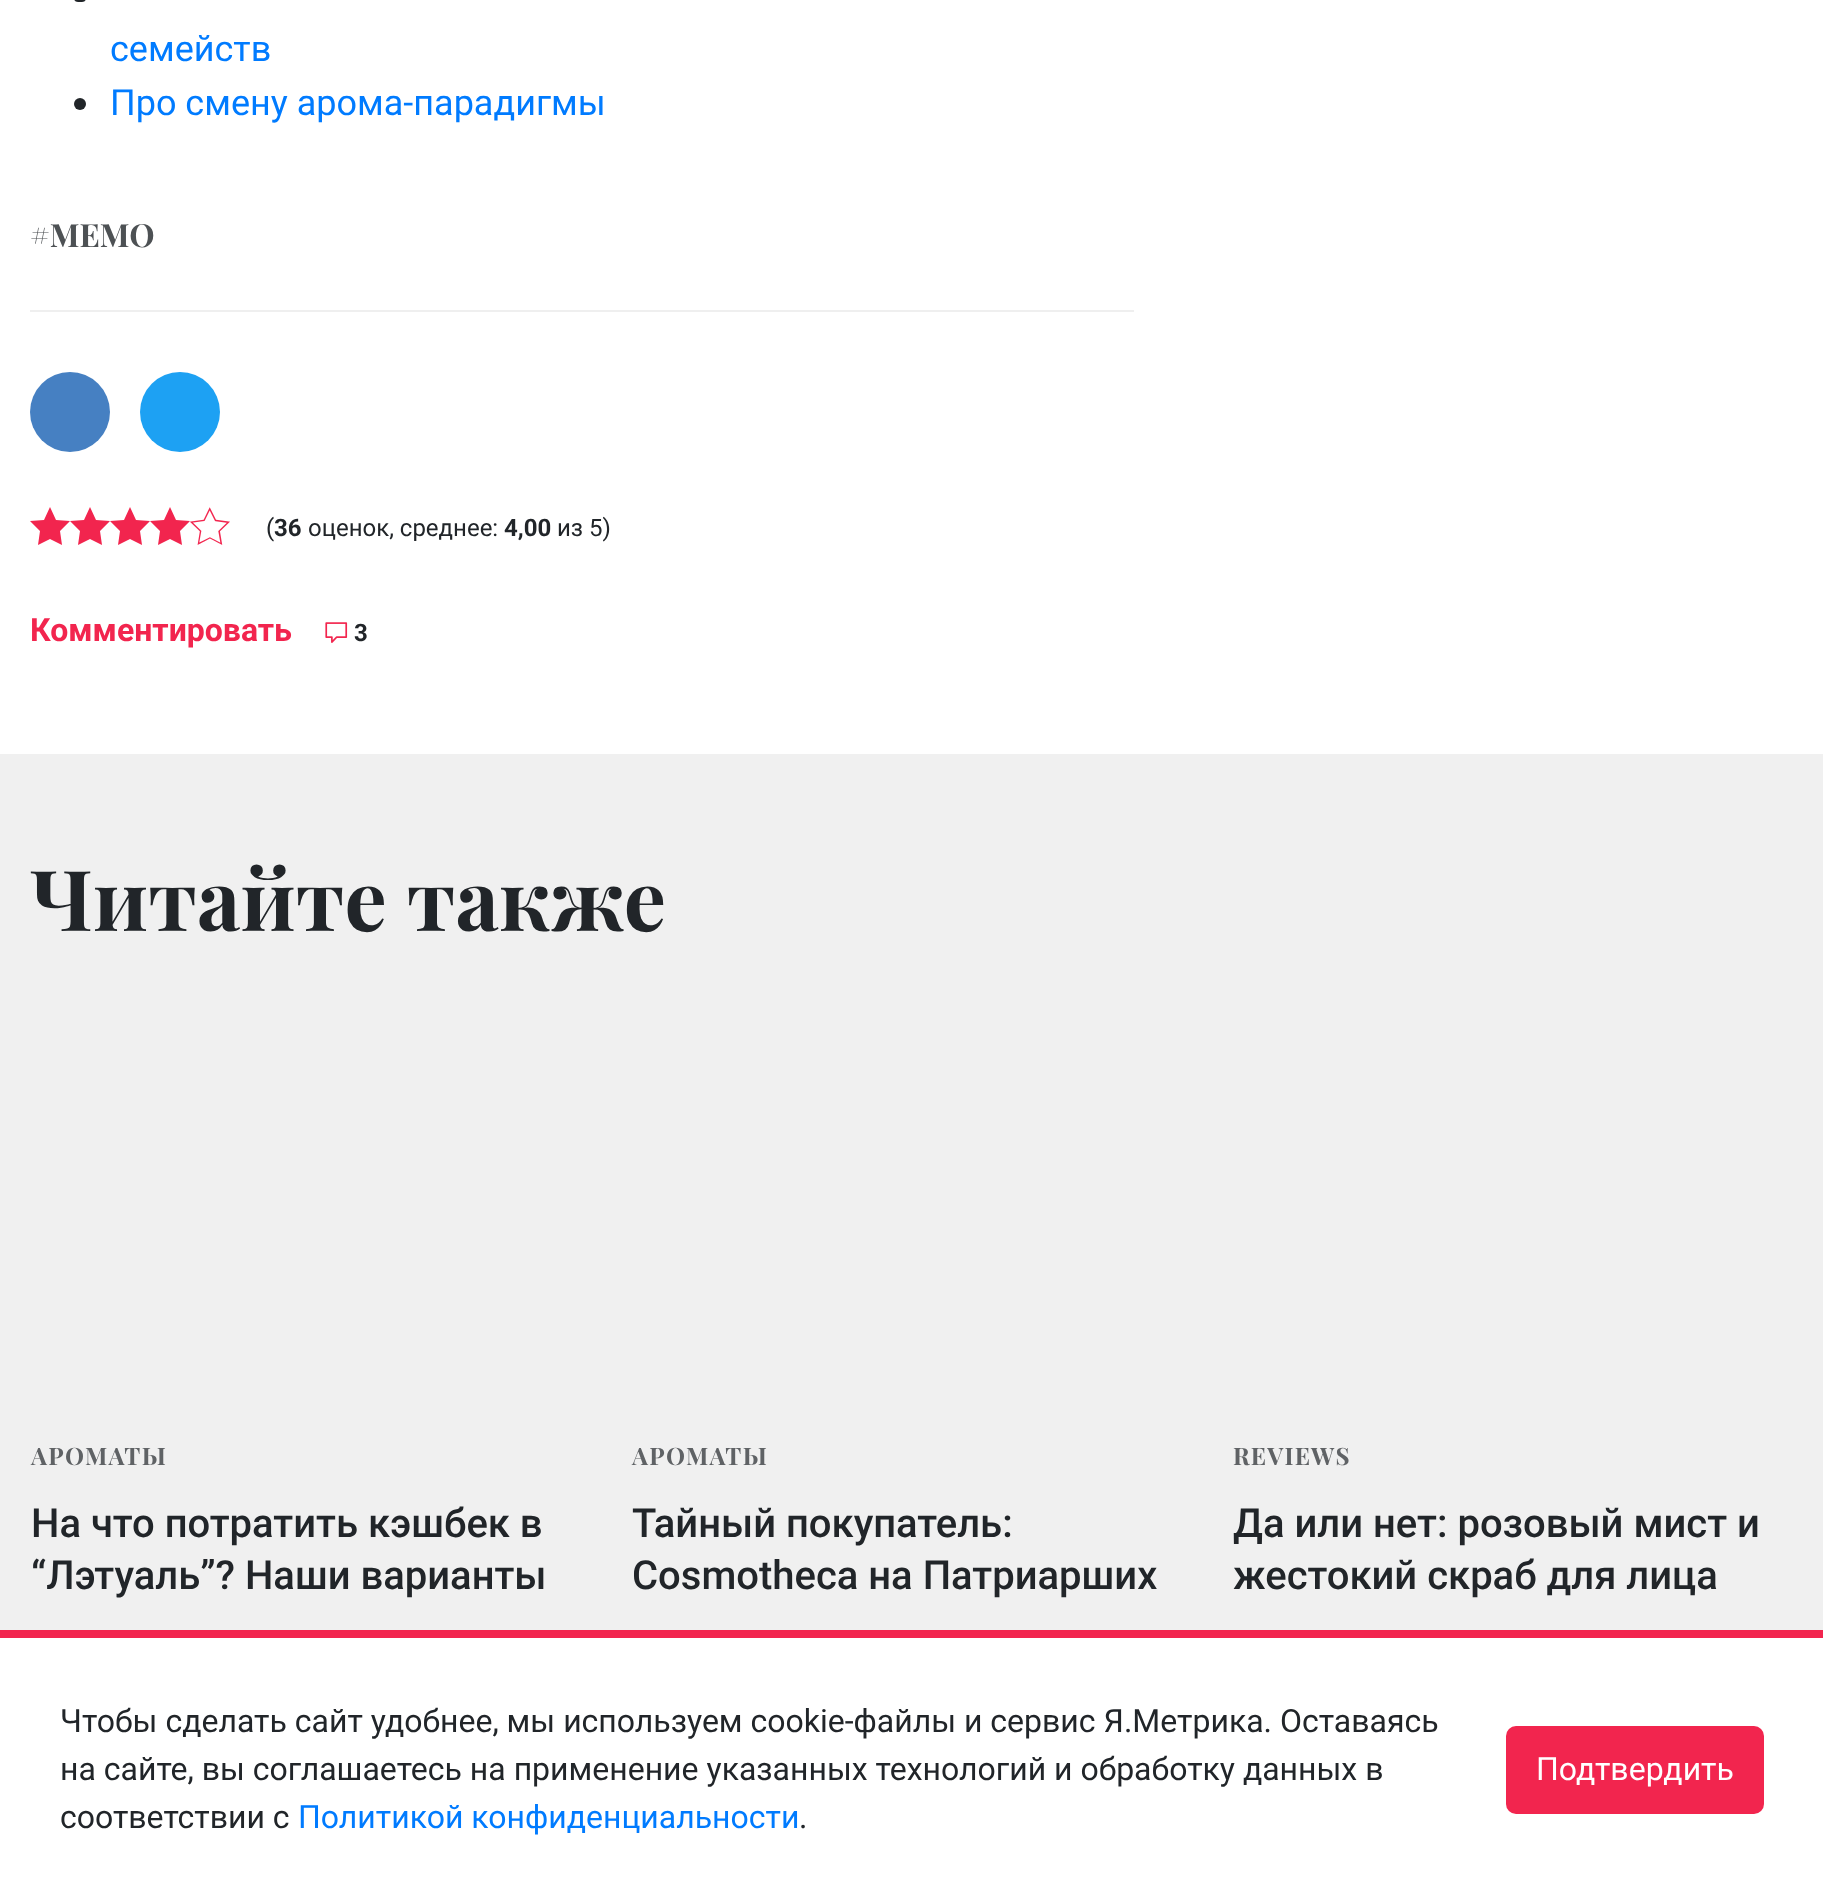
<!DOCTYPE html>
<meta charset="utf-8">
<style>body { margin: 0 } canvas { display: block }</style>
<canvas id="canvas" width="1823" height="1901"></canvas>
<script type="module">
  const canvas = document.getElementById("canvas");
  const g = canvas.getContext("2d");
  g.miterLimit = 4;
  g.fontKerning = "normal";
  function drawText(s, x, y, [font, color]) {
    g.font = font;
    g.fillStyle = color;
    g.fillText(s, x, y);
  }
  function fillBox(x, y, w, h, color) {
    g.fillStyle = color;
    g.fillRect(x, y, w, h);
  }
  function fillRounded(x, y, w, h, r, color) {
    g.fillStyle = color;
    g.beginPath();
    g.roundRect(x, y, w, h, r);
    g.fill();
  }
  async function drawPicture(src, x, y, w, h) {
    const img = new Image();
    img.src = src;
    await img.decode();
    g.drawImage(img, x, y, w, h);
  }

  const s1 = ["36px Roboto", "#007BFF"];
  const s2 = ["bold 32px Playfair Display", "#4D5154"];
  const s3 = ["24px Roboto", "#212529"];
  const s4 = ["bold 24px Roboto", "#212529"];
  const s5 = ["bold 32px Roboto", "#F2254E"];
  const s6 = ["bold 84px Playfair Display", "#212529"];
  const s7 = ["bold 24px Playfair Display", "#5F6265"];
  const s8 = ["500 40px Roboto", "#212529"];
  const s9 = ["32px Roboto", "#212529"];
  const s10 = ["32px Roboto", "#007BFF"];
  const s11 = ["32px Roboto", "#FFFFFF"];

  fillBox(0, 0, 1823, 1901, "#FFFFFF");
  fillRounded(74, -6, 12, 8, 6, "#212529");
  drawText("семейств", 110, 61, s1);
  g.fillStyle = "#212529";
  g.beginPath();
  g.arc(80, 104, 6, 0, Math.PI * 2);
  g.fill();
  drawText("Про смену арома-парадигмы", 110, 115, s1);
  drawText("#MEMO", 30, 247, s2);
  fillBox(30, 310, 1104, 2, "#EFEFEF");
  g.fillStyle = "#4680C2";
  g.beginPath();
  g.arc(70, 412, 40, 0, Math.PI * 2);
  g.fill();
  g.fillStyle = "#1DA1F3";
  g.beginPath();
  g.arc(180, 412, 40, 0, Math.PI * 2);
  g.fill();
  g.fillStyle = "#F2254E";
  g.beginPath();
  g.moveTo(50, 507);
  g.lineTo(56, 520);
  g.lineTo(70, 521);
  g.lineTo(60, 531);
  g.lineTo(62, 545);
  g.lineTo(50, 539);
  g.lineTo(38, 545);
  g.lineTo(40, 531);
  g.lineTo(30, 521);
  g.lineTo(44, 520);
  g.closePath();
  g.fill();
  g.beginPath();
  g.moveTo(90, 507);
  g.lineTo(96, 520);
  g.lineTo(110, 521);
  g.lineTo(100, 531);
  g.lineTo(102, 545);
  g.lineTo(90, 539);
  g.lineTo(78, 545);
  g.lineTo(80, 531);
  g.lineTo(70, 521);
  g.lineTo(84, 520);
  g.closePath();
  g.fill();
  g.beginPath();
  g.moveTo(130, 507);
  g.lineTo(136, 520);
  g.lineTo(150, 521);
  g.lineTo(140, 531);
  g.lineTo(142, 545);
  g.lineTo(130, 539);
  g.lineTo(118, 545);
  g.lineTo(120, 531);
  g.lineTo(110, 521);
  g.lineTo(124, 520);
  g.closePath();
  g.fill();
  g.beginPath();
  g.moveTo(170, 507);
  g.lineTo(176, 520);
  g.lineTo(190, 521);
  g.lineTo(180, 531);
  g.lineTo(182, 545);
  g.lineTo(170, 539);
  g.lineTo(158, 545);
  g.lineTo(160, 531);
  g.lineTo(150, 521);
  g.lineTo(164, 520);
  g.closePath();
  g.fill();
  await drawPicture("pic1.png", 190, 507, 40, 38);
  drawText("(", 266, 536, s3);
  drawText("36", 274, 536, s4);
  drawText("оценок, среднее:", 308, 536, s3);
  drawText("4,00", 504, 536, s4);
  drawText("из 5)", 557, 536, s3);
  drawText("Комментировать", 30, 641, s5);
  await drawPicture("pic2.png", 325, 622, 23, 21);
  drawText("3", 354, 641, s4);
  fillBox(0, 754, 1823, 876, "#F0F0F0");
  drawText("Читайте также", 30, 931, s6);
  g.letterSpacing = "1.25px";
  drawText("АРОМАТЫ", 31, 1465, s7);
  g.letterSpacing = "0px";
  drawText("На что потратить кэшбек в", 31, 1537, s8);
  drawText("“Лэтуаль”? Наши варианты", 31, 1589, s8);
  g.letterSpacing = "1.25px";
  drawText("АРОМАТЫ", 632, 1465, s7);
  g.letterSpacing = "0px";
  drawText("Тайный покупатель:", 632, 1537, s8);
  drawText("Cosmotheca на Патриарших", 632, 1589, s8);
  g.letterSpacing = "1.25px";
  drawText("REVIEWS", 1233, 1465, s7);
  g.letterSpacing = "0px";
  drawText("Да или нет: розовый мист и", 1233, 1537, s8);
  drawText("жестокий скраб для лица", 1233, 1589, s8);
  fillBox(0, 1630, 1823, 8, "#F2254E");
  drawText("Чтобы сделать сайт удобнее, мы используем cookie-файлы и сервис Я.Метрика. Оставаясь", 60, 1732, s9);
  drawText("на сайте, вы соглашаетесь на применение указанных технологий и обработку данных в", 60, 1780, s9);
  drawText("соответствии с", 60, 1828, s9);
  drawText("Политикой конфиденциальности", 298, 1828, s10);
  drawText(".", 799, 1828, s9);
  fillRounded(1506, 1726, 258, 88, 10, "#F2254E");
  drawText("Подтвердить", 1536, 1780, s11);
</script>
